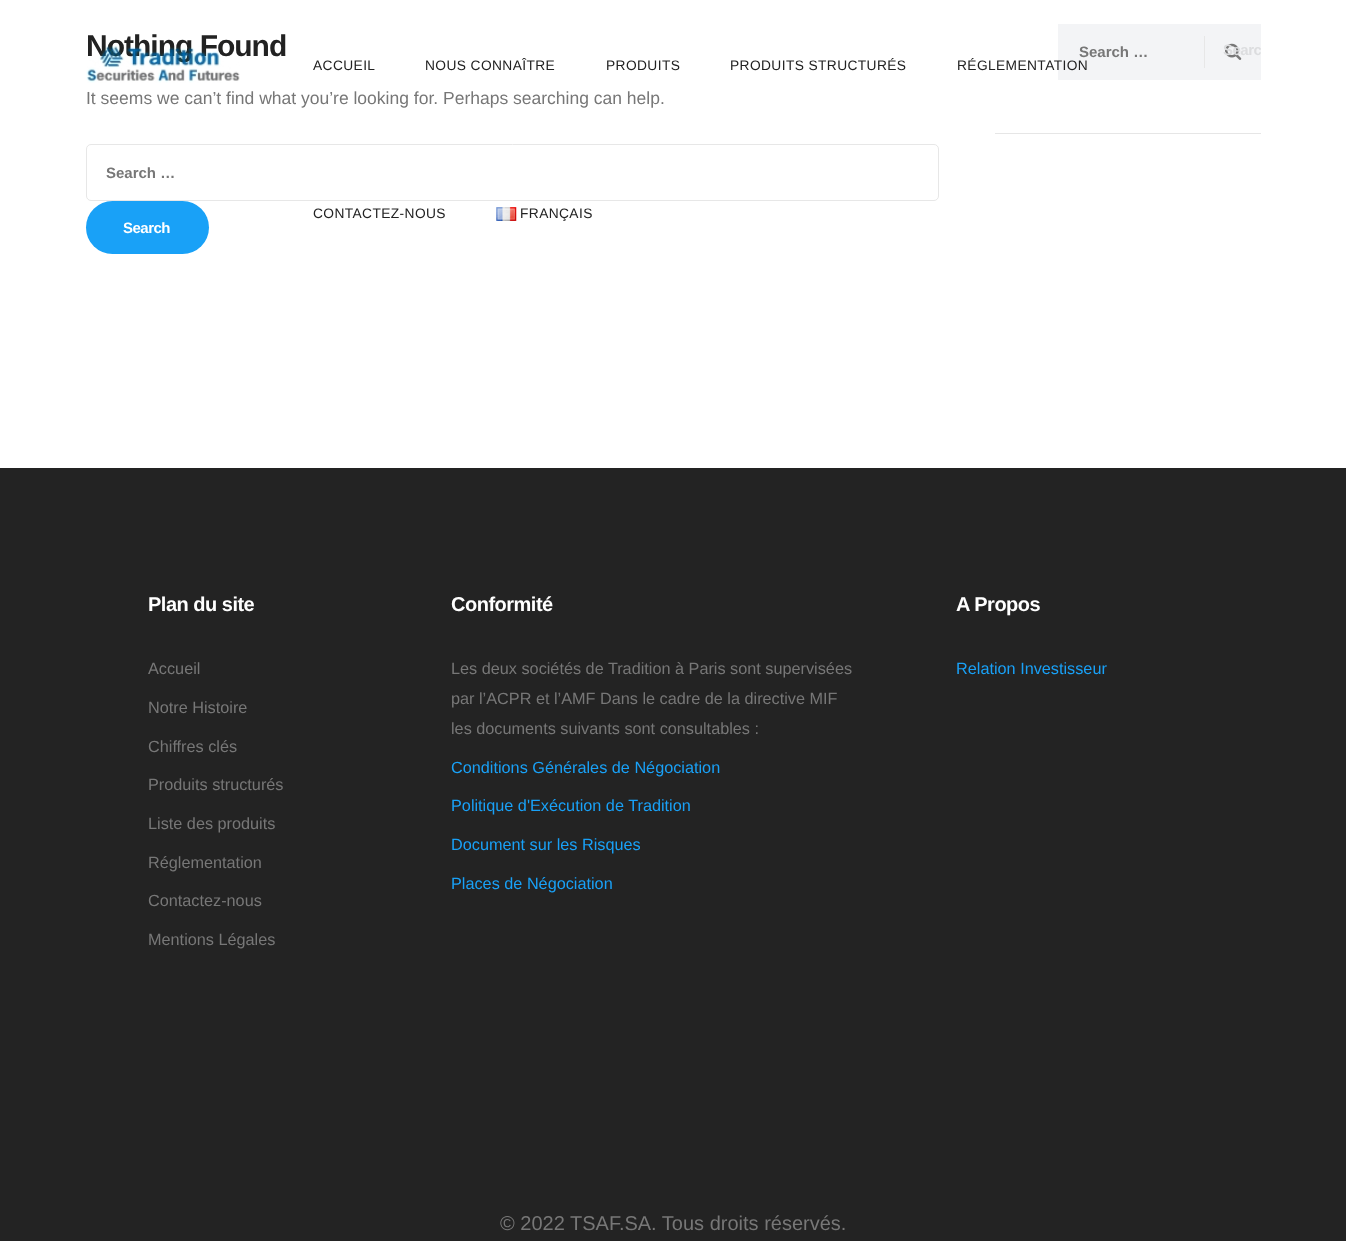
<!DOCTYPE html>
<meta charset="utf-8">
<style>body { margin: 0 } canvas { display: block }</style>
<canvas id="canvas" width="1346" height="1241"></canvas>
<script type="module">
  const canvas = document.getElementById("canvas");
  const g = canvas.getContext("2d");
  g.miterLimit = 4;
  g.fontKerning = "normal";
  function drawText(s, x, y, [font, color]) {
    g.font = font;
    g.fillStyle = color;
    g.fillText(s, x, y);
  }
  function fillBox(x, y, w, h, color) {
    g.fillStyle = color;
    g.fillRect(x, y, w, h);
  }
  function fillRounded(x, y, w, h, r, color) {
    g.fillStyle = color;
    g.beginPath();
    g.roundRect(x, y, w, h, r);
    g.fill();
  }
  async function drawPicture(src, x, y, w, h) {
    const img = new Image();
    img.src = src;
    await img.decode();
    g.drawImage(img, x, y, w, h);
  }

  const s1 = ["bold 30px Liberation Sans", "#222222"];
  const s2 = ["17.5px Liberation Sans", "#777777"];
  const s3 = ["bold 15px Liberation Sans", "#777777"];
  const s4 = ["bold 15px Liberation Sans", "#FFFFFF"];
  const s5 = ["bold 15px Liberation Sans", "#DCDDDF"];
  const s6 = ["13.75px Liberation Sans", "#222222"];
  const s7 = ["bold 20px Liberation Sans", "#FFFFFF"];
  const s8 = ["16.25px Liberation Sans", "#777777"];
  const s9 = ["16.25px Liberation Sans", "#19A1F7"];
  const s10 = ["20px Liberation Sans", "#777777"];

  fillBox(0, 0, 1346, 1241, "#FFFFFF");
  g.letterSpacing = "-1px";
  drawText("Nothing Found", 86, 56, s1);
  g.letterSpacing = "0px";
  drawText("It seems we can’t find what you’re looking for. Perhaps searching can help.", 86, 104, s2);
  g.beginPath();
  g.roundRect(86.5, 144.5, 852, 56, 4.5);
  g.strokeStyle = "#E7E7E7";
  g.stroke();
  drawText("Search …", 106, 178, s3);
  fillRounded(86, 201, 123, 53, 26.5, "#19A1F7");
  g.letterSpacing = "-0.5px";
  drawText("Search", 123, 233, s4);
  fillBox(995, 133, 266, 1, "#E6E6E6");
  fillBox(1058, 24, 203, 56, "#F3F4F6");
  fillBox(1204, 36, 1, 32, "#E7E7E7");
  await drawPicture("pic1.png", 1225, 43, 17, 17);
  g.letterSpacing = "0px";
  drawText("Search …", 1079, 57, s3);
  g.save();
  g.beginPath();
  g.roundRect(1186, 24, 75, 52, 26);
  g.clip();
  g.letterSpacing = "-0.5px";
  drawText("Searc", 1223, 55, s5);
  g.restore();
  await drawPicture("pic2.png", 86, 46, 154, 37);
  g.letterSpacing = "0.4px";
  drawText("ACCUEIL", 313, 70, s6);
  drawText("NOUS CONNAÎTRE", 425, 70, s6);
  drawText("PRODUITS", 606, 70, s6);
  drawText("PRODUITS STRUCTURÉS", 730, 70, s6);
  drawText("RÉGLEMENTATION", 957, 70, s6);
  drawText("CONTACTEZ-NOUS", 313, 218, s6);
  await drawPicture("pic3.png", 496, 207, 21, 14);
  drawText("FRANÇAIS", 520, 218, s6);
  fillBox(0, 468, 1346, 773, "#232323");
  g.letterSpacing = "-0.5px";
  drawText("Plan du site", 148, 611, s7);
  g.letterSpacing = "0px";
  drawText("Accueil", 148, 674, s8);
  drawText("Notre Histoire", 148, 713, s8);
  drawText("Chiffres clés", 148, 752, s8);
  drawText("Produits structurés", 148, 790, s8);
  drawText("Liste des produits", 148, 829, s8);
  drawText("Réglementation", 148, 868, s8);
  drawText("Contactez-nous", 148, 906, s8);
  drawText("Mentions Légales", 148, 945, s8);
  g.letterSpacing = "-0.5px";
  drawText("Conformité", 451, 611, s7);
  g.letterSpacing = "0px";
  drawText("Les deux sociétés de Tradition à Paris sont supervisées", 451, 674, s8);
  drawText("par l’ACPR et l’AMF Dans le cadre de la directive MIF", 451, 704, s8);
  drawText("les documents suivants sont consultables :", 451, 734, s8);
  drawText("Conditions Générales de Négociation", 451, 773, s9);
  drawText("Politique d'Exécution de Tradition", 451, 811, s9);
  drawText("Document sur les Risques", 451, 850, s9);
  drawText("Places de Négociation", 451, 889, s9);
  g.letterSpacing = "-0.5px";
  drawText("A Propos", 956, 611, s7);
  g.letterSpacing = "0px";
  drawText("Relation Investisseur", 956, 674, s9);
  drawText("© 2022 TSAF.SA. Tous droits réservés.", 500, 1230, s10);
</script>
